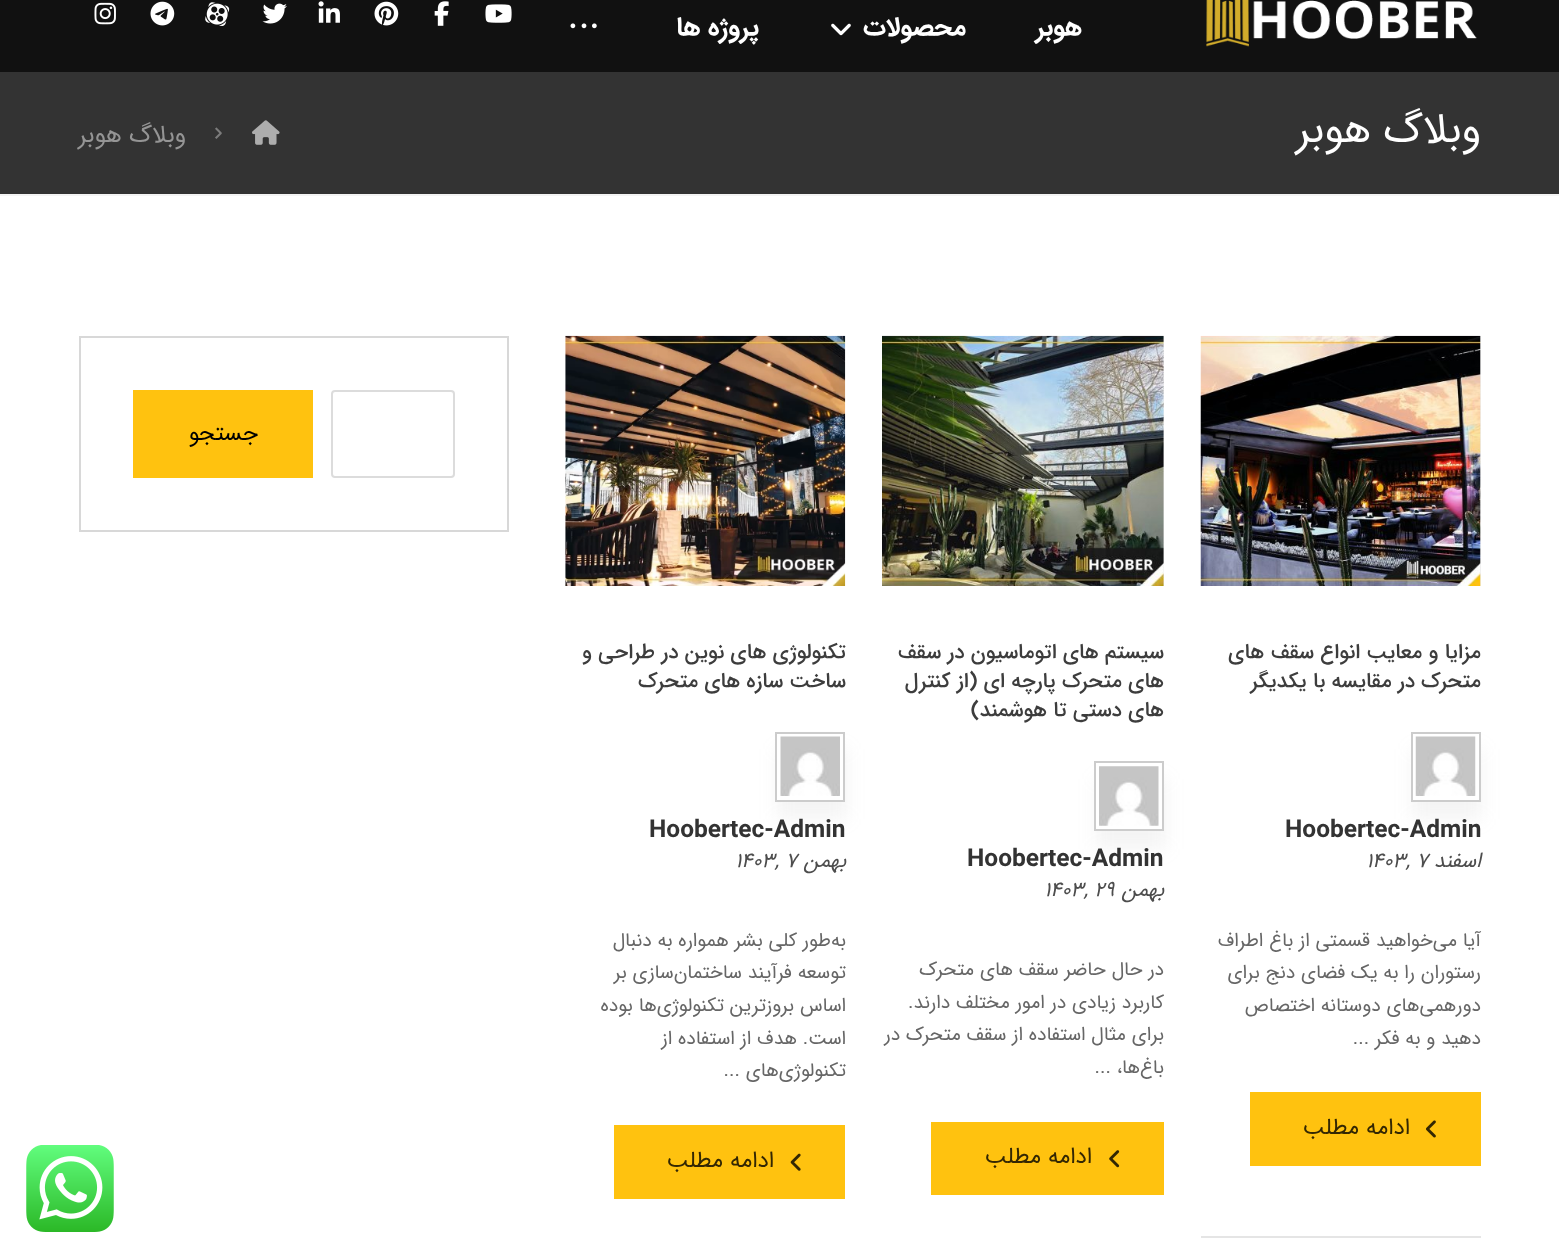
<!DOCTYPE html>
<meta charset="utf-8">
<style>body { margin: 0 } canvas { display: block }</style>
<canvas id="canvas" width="1559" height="1258"></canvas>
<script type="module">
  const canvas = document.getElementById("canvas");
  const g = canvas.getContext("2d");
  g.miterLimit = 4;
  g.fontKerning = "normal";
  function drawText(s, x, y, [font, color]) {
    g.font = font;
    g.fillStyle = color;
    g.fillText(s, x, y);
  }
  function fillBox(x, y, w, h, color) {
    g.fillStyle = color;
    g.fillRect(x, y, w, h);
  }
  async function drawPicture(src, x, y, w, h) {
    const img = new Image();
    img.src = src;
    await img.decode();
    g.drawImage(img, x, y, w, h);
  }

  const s1 = ["bold 26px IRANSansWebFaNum", "#FFFFFF"];
  const s2 = ["42px IRANSansWebFaNum", "#FFFFFF"];
  const s3 = ["24.5px IRANSansWebFaNum", "#959595"];
  const s4 = ["22.75px IRANSansWebFaNum", "#000000"];
  const s5 = ["500 21px IRANSansWebFaNum", "#3D3D3D"];
  const s6 = ["bold 24.5px IRANSansWebFaNum", "#333333"];
  const s7 = ["italic 21px IRANSansWebFaNum", "#4D4D4D"];
  const s8 = ["19.25px IRANSansWebFaNum", "#666666"];
  const s9 = ["22.75px IRANSansWebFaNum", "#332703"];

  fillBox(0, 0, 1559, 1258, "#FFFFFF");
  fillBox(0, 0, 1559, 72, "#111111");
  await drawPicture("pic1.png", 485, 4, 27, 19);
  await drawPicture("pic2.png", 434, 1, 15, 25);
  await drawPicture("pic3.png", 374, 1, 25, 25);
  await drawPicture("pic4.png", 318, 1, 22, 22);
  await drawPicture("pic5.png", 262, 3, 25, 21);
  await drawPicture("pic6.png", 205, 2, 25, 24);
  await drawPicture("pic7.png", 150, 1, 25, 25);
  await drawPicture("pic8.png", 94, 2, 22, 23);
  await drawPicture("pic9.png", 1206, 0, 271, 47);
  g.direction = "rtl";
  drawText("هوبر", 1082, 35, s1);
  drawText("محصولات", 966, 35, s1);
  await drawPicture("pic10.png", 831, 23, 20, 13);
  drawText("پروژه ها", 759, 35, s1);
  await drawPicture("pic11.png", 570, 23, 27, 6);
  fillBox(0, 72, 1559, 122, "#333333");
  fillBox(0, 194, 1559, 2, "#F4F4F4");
  drawText("وبلاگ هوبر", 1481, 142, s2);
  await drawPicture("pic12.png", 252, 120, 28, 25);
  await drawPicture("pic13.png", 215, 127, 7, 12);
  drawText("وبلاگ هوبر", 186, 142, s3);
  g.strokeStyle = "#D8D8D8";
  g.lineWidth = 2;
  g.strokeRect(80, 337, 428, 194);
  g.beginPath();
  g.roundRect(332, 391, 122, 86, 3);
  g.strokeStyle = "#DCDCDC";
  g.stroke();
  fillBox(133, 390, 180, 88, "#FFC20F");
  drawText("جستجو", 258, 440, s4);
  fillBox(1201, 1236, 280, 2, "#E5E5E5");
  fillBox(1480, 336, 1, 250, "#EDEDED");
  await drawPicture("pic14.png", 1200, 335, 281, 251);
  drawText("مزایا و معایب انواع سقف های", 1481, 658, s5);
  drawText("متحرک در مقایسه با یکدیگر", 1481, 687, s5);
  g.save();
  g.beginPath();
  g.moveTo(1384, 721);
  g.lineTo(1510, 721);
  g.lineTo(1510, 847);
  g.lineTo(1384, 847);
  g.closePath();
  g.moveTo(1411, 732);
  g.lineTo(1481, 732);
  g.lineTo(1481, 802);
  g.lineTo(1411, 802);
  g.closePath();
  g.clip("evenodd");
  g.fillStyle = "rgba(167, 167, 167, 0.12)";
  g.filter = "blur(9px)";
  g.beginPath();
  g.rect(1412, 749, 70, 70);
  g.fill();
  g.filter = "none";
  g.restore();
  g.strokeStyle = "#CCCCCC";
  g.strokeRect(1412, 733, 68, 68);
  await drawPicture("pic15.png", 1415, 736, 61, 60);
  g.direction = "ltr";
  drawText("Hoobertec-Admin", 1285, 837, s6);
  g.direction = "rtl";
  drawText("اسفند", 1481, 867, s7);
  g.direction = "ltr";
  drawText("۱۴۰۳, ۷", 1366, 867, s7);
  g.direction = "rtl";
  drawText("آیا می‌خواهید قسمتی از باغ اطراف", 1481, 946, s8);
  drawText("رستوران را به یک فضای دنج برای", 1481, 978, s8);
  drawText("دورهمی‌های دوستانه اختصاص", 1481, 1011, s8);
  drawText("دهید و به فکر ...", 1481, 1044, s8);
  fillBox(1250, 1092, 231, 74, "#FFC20F");
  await drawPicture("pic16.png", 1426, 1120, 10, 18);
  drawText("ادامه مطلب", 1410, 1134, s9);
  fillBox(1163, 336, 1, 250, "#EDEDED");
  await drawPicture("pic17.png", 882, 335, 282, 251);
  drawText("سیستم‌ های اتوماسیون در سقف‌", 1164, 658, s5);
  drawText("های متحرک پارچه ‌ای (از کنترل‌", 1164, 687, s5);
  drawText("های دستی تا هوشمند)", 1164, 716, s5);
  g.save();
  g.beginPath();
  g.moveTo(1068, 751);
  g.lineTo(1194, 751);
  g.lineTo(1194, 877);
  g.lineTo(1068, 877);
  g.closePath();
  g.moveTo(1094, 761);
  g.lineTo(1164, 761);
  g.lineTo(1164, 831);
  g.lineTo(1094, 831);
  g.closePath();
  g.clip("evenodd");
  g.fillStyle = "rgba(167, 167, 167, 0.12)";
  g.filter = "blur(9px)";
  g.beginPath();
  g.rect(1096, 779, 70, 70);
  g.fill();
  g.filter = "none";
  g.restore();
  g.strokeRect(1095, 762, 68, 68);
  await drawPicture("pic18.png", 1099, 766, 60, 60);
  g.direction = "ltr";
  drawText("Hoobertec-Admin", 967, 866, s6);
  g.direction = "rtl";
  drawText("بهمن", 1164, 896, s7);
  g.direction = "ltr";
  drawText("۱۴۰۳, ۲۹", 1044, 896, s7);
  g.direction = "rtl";
  drawText("در حال حاضر سقف‌ های متحرک", 1164, 975, s8);
  drawText("کاربرد زیادی در امور مختلف دارند.", 1164, 1008, s8);
  drawText("برای مثال استفاده از سقف متحرک در", 1164, 1040, s8);
  drawText("باغ‌ها، ...", 1164, 1073, s8);
  fillBox(931, 1122, 233, 73, "#FFC20F");
  await drawPicture("pic19.png", 1109, 1150, 11, 18);
  drawText("ادامه مطلب", 1092, 1163, s9);
  await drawPicture("pic20.png", 565, 335, 281, 251);
  drawText("تکنولوژی ‌های نوین در طراحی و", 846, 658, s5);
  drawText("ساخت سازه های متحرک", 846, 687, s5);
  g.save();
  g.beginPath();
  g.moveTo(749, 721);
  g.lineTo(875, 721);
  g.lineTo(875, 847);
  g.lineTo(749, 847);
  g.closePath();
  g.moveTo(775, 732);
  g.lineTo(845, 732);
  g.lineTo(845, 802);
  g.lineTo(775, 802);
  g.closePath();
  g.clip("evenodd");
  g.fillStyle = "rgba(167, 167, 167, 0.12)";
  g.filter = "blur(9px)";
  g.beginPath();
  g.rect(777, 749, 70, 70);
  g.fill();
  g.filter = "none";
  g.restore();
  g.strokeRect(776, 733, 68, 68);
  await drawPicture("pic21.png", 780, 736, 60, 60);
  g.direction = "ltr";
  drawText("Hoobertec-Admin", 649, 837, s6);
  g.direction = "rtl";
  drawText("بهمن", 846, 867, s7);
  g.direction = "ltr";
  drawText("۱۴۰۳, ۷", 735, 867, s7);
  g.direction = "rtl";
  drawText("به‌طور کلی بشر همواره به دنبال", 846, 946, s8);
  drawText("توسعه فرآیند ساختمان‌سازی بر", 846, 978, s8);
  drawText("اساس بروزترین تکنولوژی‌ها بوده", 846, 1011, s8);
  drawText("است. هدف از استفاده از", 846, 1044, s8);
  drawText("تکنولوژی‌های ...", 846, 1076, s8);
  fillBox(614, 1125, 231, 74, "#FFC20F");
  await drawPicture("pic22.png", 790, 1153, 11, 18);
  drawText("ادامه مطلب", 774, 1167, s9);
  await drawPicture("pic23.png", 26, 1145, 88, 87);
</script>
